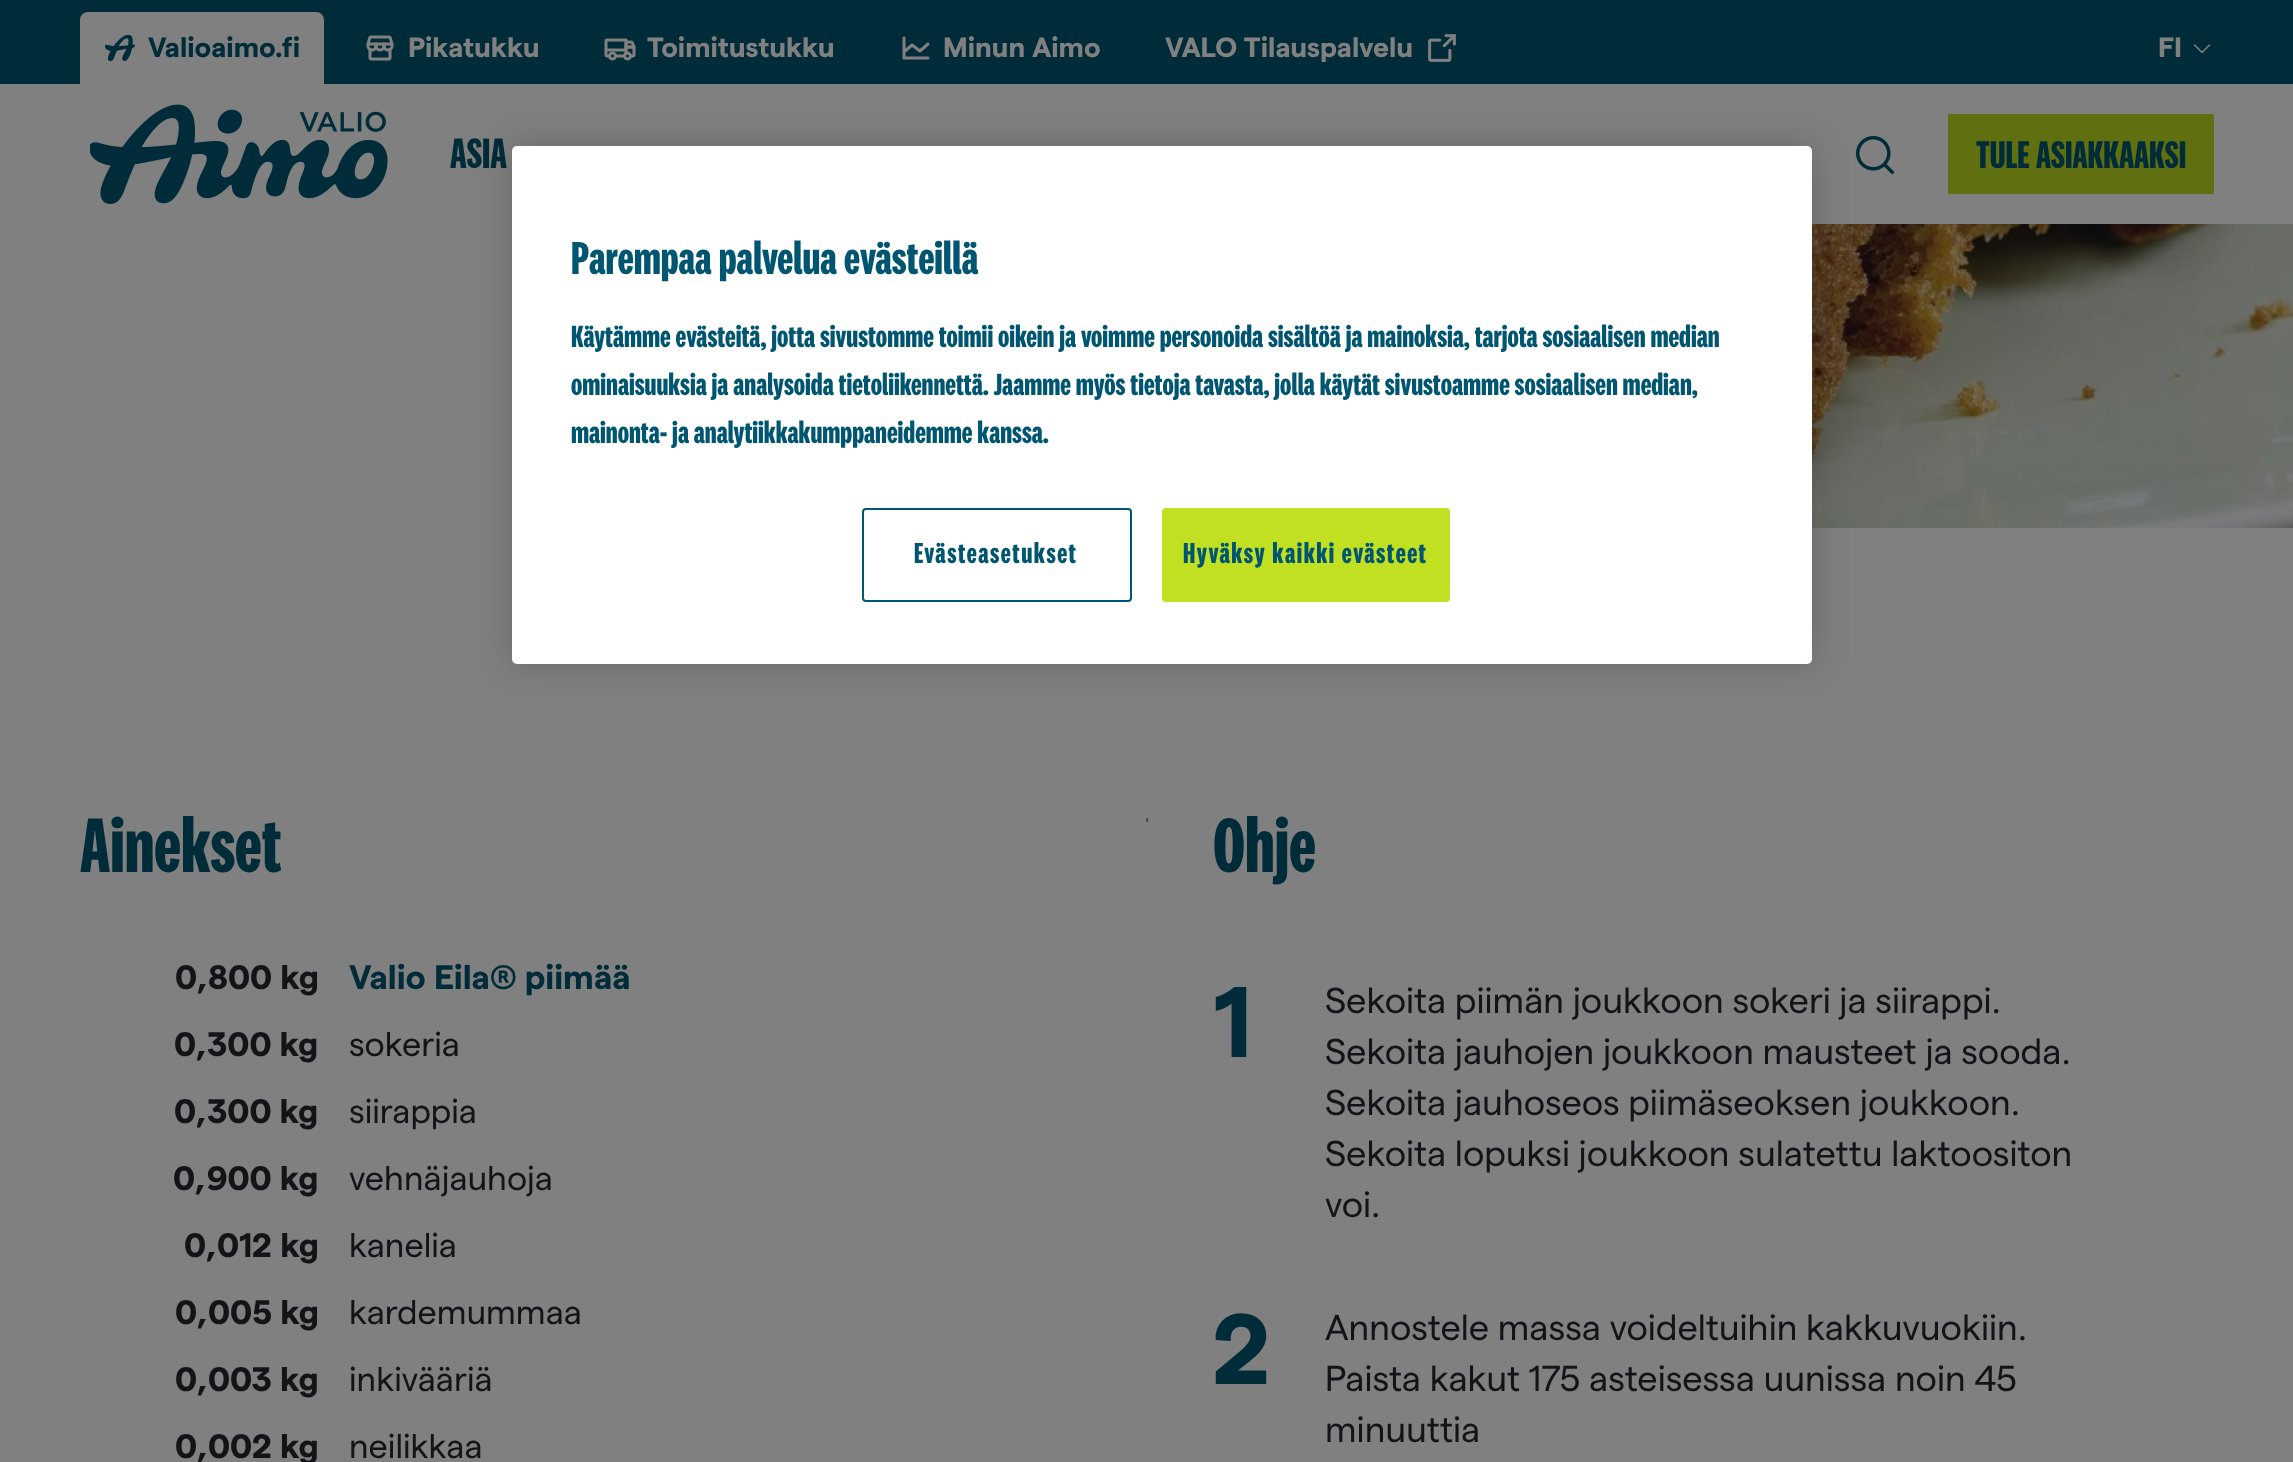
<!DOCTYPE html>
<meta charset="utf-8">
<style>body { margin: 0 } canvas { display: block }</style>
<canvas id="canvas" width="2293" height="1462"></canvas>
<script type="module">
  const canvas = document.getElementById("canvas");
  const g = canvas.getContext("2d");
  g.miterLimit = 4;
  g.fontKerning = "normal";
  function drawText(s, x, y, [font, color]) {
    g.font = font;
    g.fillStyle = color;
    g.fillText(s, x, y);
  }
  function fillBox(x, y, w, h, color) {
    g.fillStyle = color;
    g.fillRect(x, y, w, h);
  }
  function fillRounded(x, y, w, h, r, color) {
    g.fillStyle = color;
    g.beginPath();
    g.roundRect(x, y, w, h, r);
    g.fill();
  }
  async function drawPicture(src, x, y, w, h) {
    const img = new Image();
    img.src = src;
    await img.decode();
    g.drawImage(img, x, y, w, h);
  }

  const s1 = ["bold 28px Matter", "#002B38"];
  const s2 = ["bold 28px Matter", "#808080"];
  const s3 = ["bold 44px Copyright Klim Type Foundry", "#002B38"];
  const s4 = ["bold 40px Copyright Klim Type Foundry", "#002B38"];
  const s5 = ["bold 48px Copyright Klim Type Foundry", "#005670"];
  const s6 = ["bold 32px Copyright Klim Type Foundry", "#005670"];
  const s7 = ["bold 30px Copyright Klim Type Foundry", "#005670"];
  const s8 = ["bold 80px Copyright Klim Type Foundry", "#002B38"];
  const s9 = ["bold 34px Matter", "#121417"];
  const s10 = ["bold 34px Matter", "#002B38"];
  const s11 = ["34px Matter", "#121417"];
  const s12 = ["bold 100px Matter", "#002B38"];
  const s13 = ["36px Matter", "#121417"];

  fillBox(0, 0, 2293, 1462, "#808080");
  fillBox(0, 0, 2293, 84, "#002B38");
  g.fillStyle = "#808080";
  g.beginPath();
  g.roundRect(80, 12, 244, 72, [8, 8, 0, 0]);
  g.fill();
  await drawPicture("pic1.png", 105, 34, 30, 28);
  drawText("Valioaimo.fi", 148, 57, s1);
  await drawPicture("pic2.png", 366, 35, 28, 26);
  drawText("Pikatukku", 408, 57, s2);
  await drawPicture("pic3.png", 604, 38, 32, 23);
  drawText("Toimitustukku", 647, 57, s2);
  g.beginPath();
  g.moveTo(928, 58);
  g.lineTo(904, 58);
  g.lineTo(904, 38);
  g.moveTo(928, 44);
  g.lineTo(920, 51);
  g.lineTo(912, 45);
  g.lineTo(904, 52);
  g.strokeStyle = "#808080";
  g.lineWidth = 3;
  g.lineCap = "round";
  g.lineJoin = "round";
  g.stroke();
  drawText("Minun Aimo", 943, 57, s2);
  drawText("VALO Tilauspalvelu", 1165, 57, s2);
  await drawPicture("pic4.png", 1428, 34, 28, 28);
  drawText("FI", 2158, 57, s2);
  await drawPicture("pic5.png", 2193, 44, 18, 10);
  await drawPicture("pic6.png", 90, 104, 298, 100);
  drawText("ASIA", 450, 168, s3);
  await drawPicture("pic7.png", 1856, 136, 38, 38);
  fillBox(1948, 114, 266, 80, "#607011");
  drawText("TULE ASIAKKAAKSI", 1976, 168, s4);
  await drawPicture("pic8.png", 1812, 224, 481, 304);
  g.fillStyle = "rgba(0, 0, 0, 0.2)";
  g.filter = "blur(18px)";
  g.beginPath();
  g.roundRect(512, 146, 1300, 518, 5);
  g.fill();
  g.filter = "none";
  fillRounded(512, 146, 1300, 518, 5, "#FFFFFF");
  drawText("Parempaa palvelua evästeillä", 571, 274, s5);
  drawText("Käytämme evästeitä, jotta sivustomme toimii oikein ja voimme personoida sisältöä ja mainoksia, tarjota sosiaalisen median", 571, 347, s6);
  drawText("ominaisuuksia ja analysoida tietoliikennettä. Jaamme myös tietoja tavasta, jolla käytät sivustoamme sosiaalisen median,", 571, 395, s6);
  drawText("mainonta- ja analytiikkakumppaneidemme kanssa.", 571, 443, s6);
  g.beginPath();
  g.roundRect(863, 509, 268, 92, 3);
  g.strokeStyle = "#005670";
  g.lineWidth = 2;
  g.lineJoin = "miter";
  g.stroke();
  g.letterSpacing = "1.5px";
  drawText("Evästeasetukset", 914, 563, s7);
  g.fillStyle = "#C0E021";
  g.beginPath();
  g.roundRect(1163, 509, 286, 92, 3);
  g.fill();
  g.strokeStyle = "#C0E021";
  g.stroke();
  drawText("Hyväksy kaikki evästeet", 1183, 563, s7);
  g.letterSpacing = "0px";
  drawText("Ainekset", 80, 872, s8);
  drawText("0,800 kg", 175, 989, s9);
  drawText("Valio Eila® piimää", 349, 989, s10);
  drawText("0,300 kg", 174, 1056, s9);
  drawText("sokeria", 349, 1056, s11);
  drawText("0,300 kg", 174, 1123, s9);
  drawText("siirappia", 349, 1123, s11);
  drawText("0,900 kg", 173, 1190, s9);
  drawText("vehnäjauhoja", 349, 1190, s11);
  drawText("0,012 kg", 184, 1257, s9);
  drawText("kanelia", 349, 1257, s11);
  drawText("0,005 kg", 175, 1324, s9);
  drawText("kardemummaa", 349, 1324, s11);
  drawText("0,003 kg", 175, 1391, s9);
  drawText("inkivääriä", 349, 1391, s11);
  drawText("0,002 kg", 175, 1458, s9);
  drawText("neilikkaa", 349, 1458, s11);
  fillBox(1148, 818, 2, 4, "#777777");
  fillBox(1146, 820, 4, 2, "#777777");
  fillBox(1146, 818, 2, 4, "#505050");
  drawText("Ohje", 1213, 872, s8);
  drawText("1", 1213, 1057, s12);
  drawText("Sekoita piimän joukkoon sokeri ja siirappi.", 1325, 1013, s13);
  drawText("Sekoita jauhojen joukkoon mausteet ja sooda.", 1325, 1064, s13);
  drawText("Sekoita jauhoseos piimäseoksen joukkoon.", 1325, 1115, s13);
  drawText("Sekoita lopuksi joukkoon sulatettu laktoositon", 1325, 1166, s13);
  drawText("voi.", 1325, 1217, s13);
  drawText("2", 1213, 1384, s12);
  drawText("Annostele massa voideltuihin kakkuvuokiin.", 1325, 1340, s13);
  drawText("Paista kakut 175 asteisessa uunissa noin 45", 1325, 1391, s13);
  drawText("minuuttia", 1325, 1442, s13);
</script>
